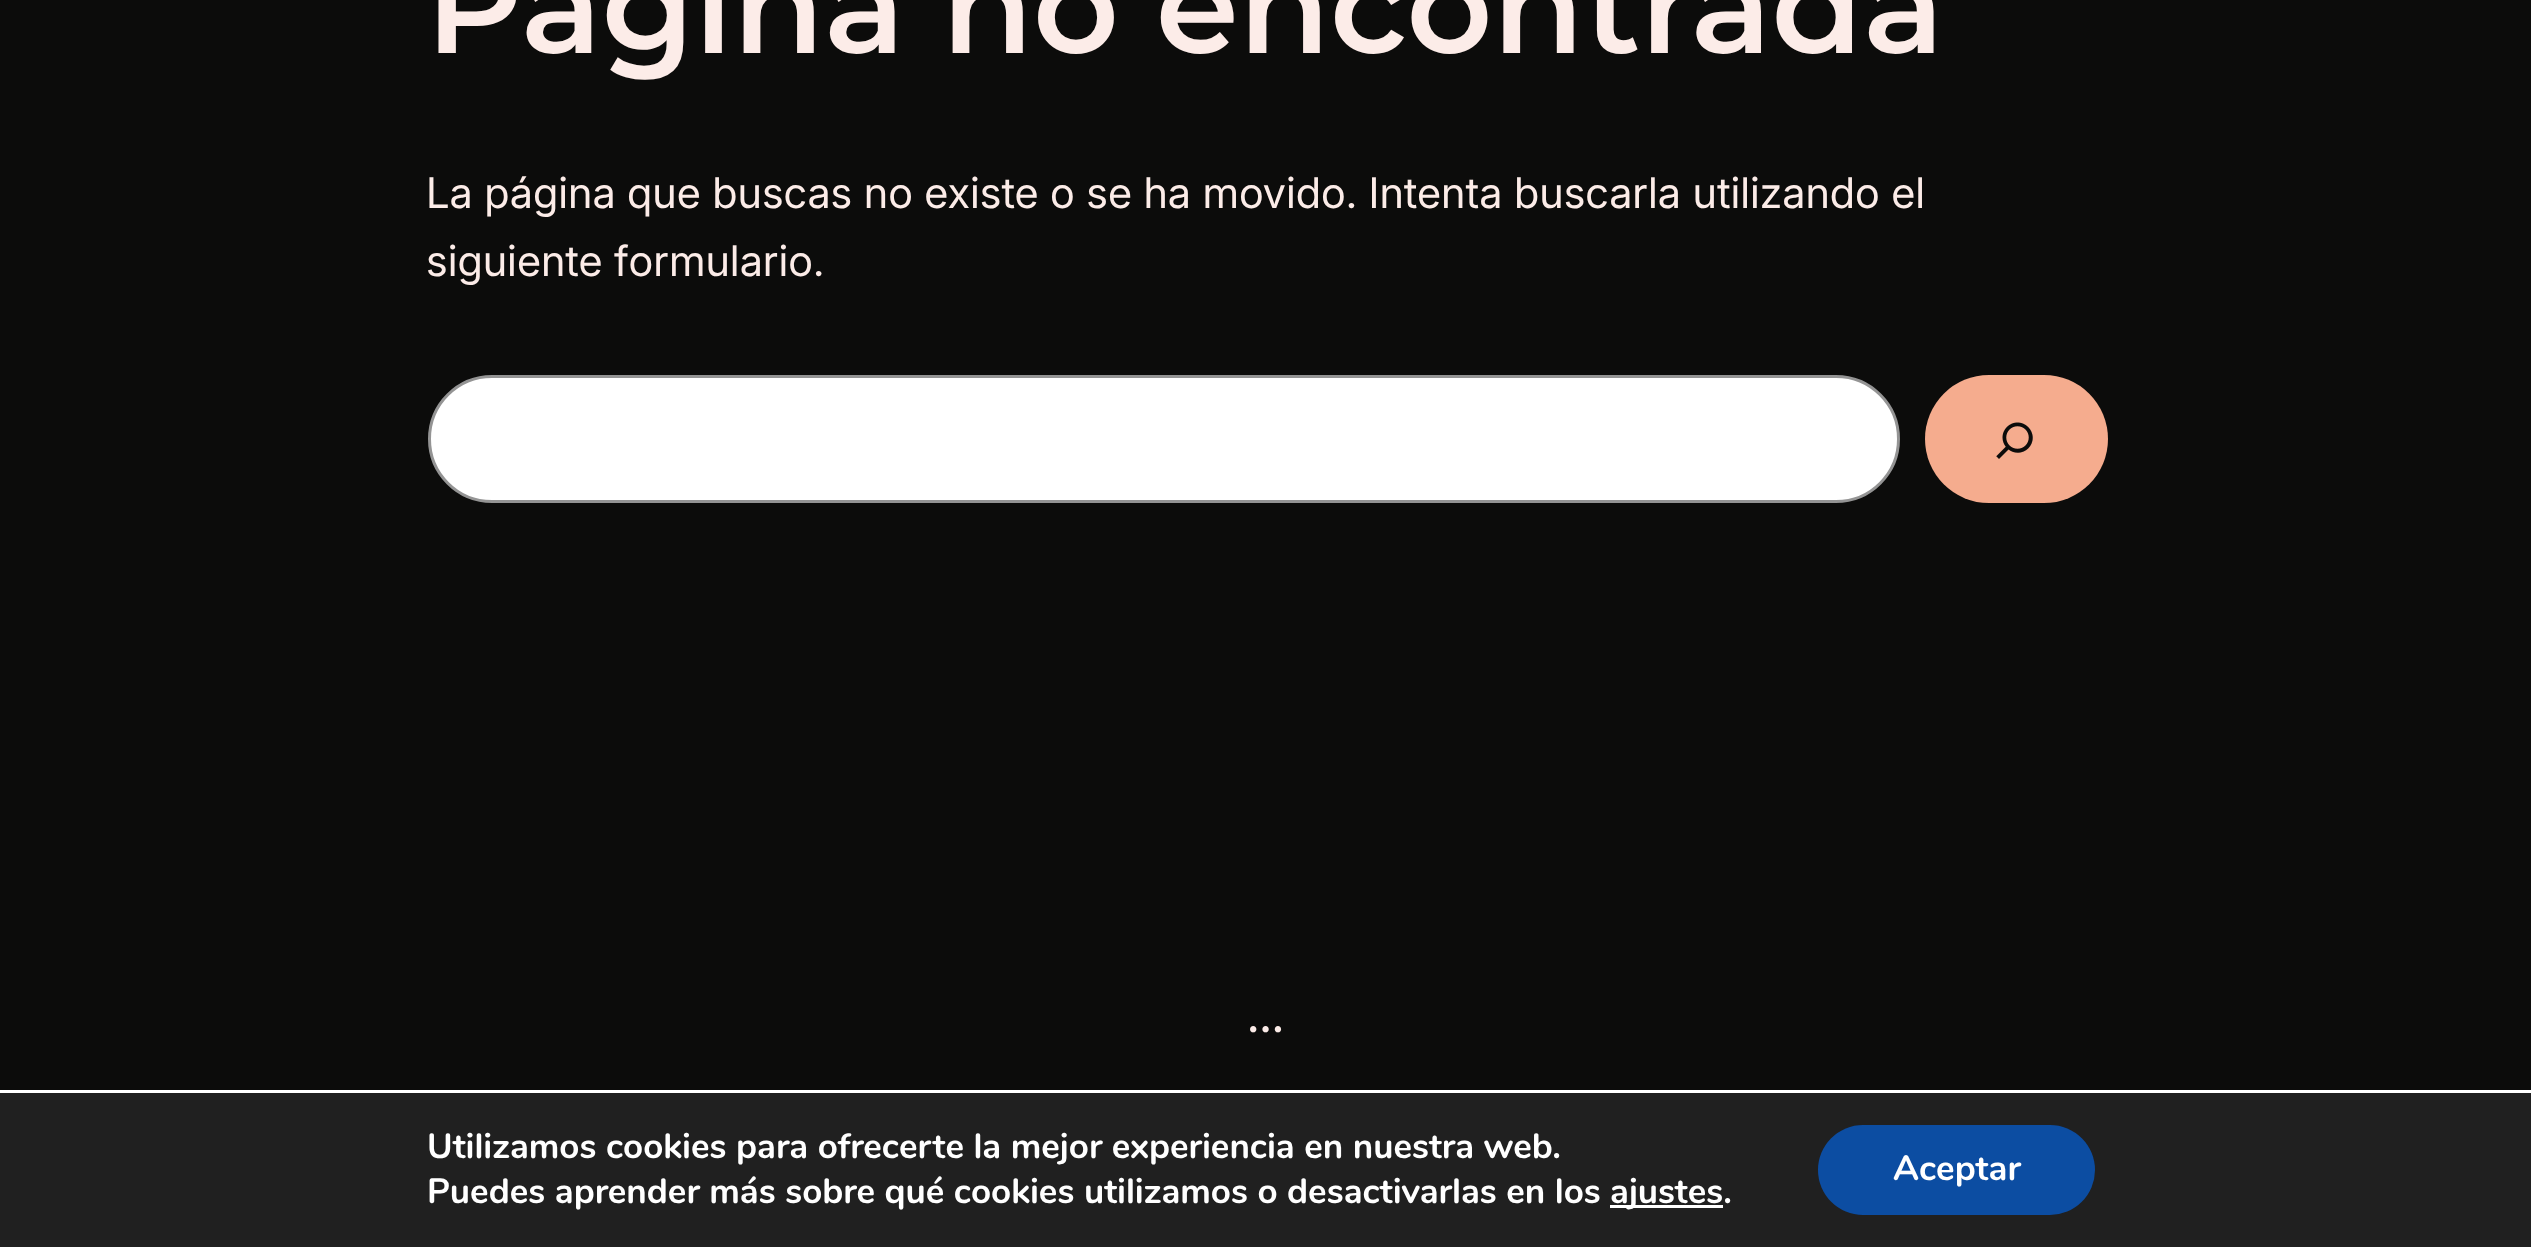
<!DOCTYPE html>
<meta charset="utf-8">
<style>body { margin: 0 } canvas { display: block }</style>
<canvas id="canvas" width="2531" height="1247"></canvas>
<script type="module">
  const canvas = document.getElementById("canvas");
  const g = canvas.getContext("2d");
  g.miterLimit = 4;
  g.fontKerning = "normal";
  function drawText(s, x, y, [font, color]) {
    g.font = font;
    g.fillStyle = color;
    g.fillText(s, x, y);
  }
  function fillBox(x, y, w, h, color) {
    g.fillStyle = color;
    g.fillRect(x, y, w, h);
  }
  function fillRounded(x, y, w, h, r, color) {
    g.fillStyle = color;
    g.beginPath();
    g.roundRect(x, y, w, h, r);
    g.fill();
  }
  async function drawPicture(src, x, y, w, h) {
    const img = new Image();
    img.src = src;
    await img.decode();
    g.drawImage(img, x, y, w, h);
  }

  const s1 = ["600 133.25px Montserrat", "#FCECE8"];
  const s2 = ["42.2px Inter", "#FCECE8"];
  const s3 = ["50px 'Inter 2'", "#FCECE8"];
  const s4 = ["bold 35px Nunito", "#FFFFFF"];

  fillBox(0, 0, 2531, 1247, "#0C0C0B");
  drawText("Página no encontrada", 426, 53, s1);
  drawText("La página que buscas no existe o se ha movido. Intenta buscarla utilizando el", 426, 208, s2);
  drawText("siguiente formulario.", 426, 276, s2);
  g.fillStyle = "#FFFFFF";
  g.beginPath();
  g.roundRect(429.5, 376.5, 1469, 125, 62.5);
  g.fill();
  g.strokeStyle = "#949494";
  g.lineWidth = 3;
  g.stroke();
  fillRounded(1925, 375, 183, 128, 64, "#F5AC8E");
  await drawPicture("pic1.png", 1996, 422, 37, 37);
  g.letterSpacing = "2px";
  drawText("…", 1247, 1032, s3);
  fillBox(0, 1093, 2531, 154, "#202020");
  fillBox(0, 1090, 2531, 3, "#FFFFFF");
  g.letterSpacing = "0px";
  drawText("Utilizamos cookies para ofrecerte la mejor experiencia en nuestra web.", 427, 1158, s4);
  drawText("Puedes aprender más sobre qué cookies utilizamos o desactivarlas en los", 427, 1203, s4);
  fillBox(1610, 1205, 113, 3, "#FFFFFF");
  drawText("ajustes.", 1610, 1203, s4);
  fillRounded(1818, 1125, 277, 90, 45, "#0C4DA2");
  drawText("Aceptar", 1893, 1180, s4);
</script>
